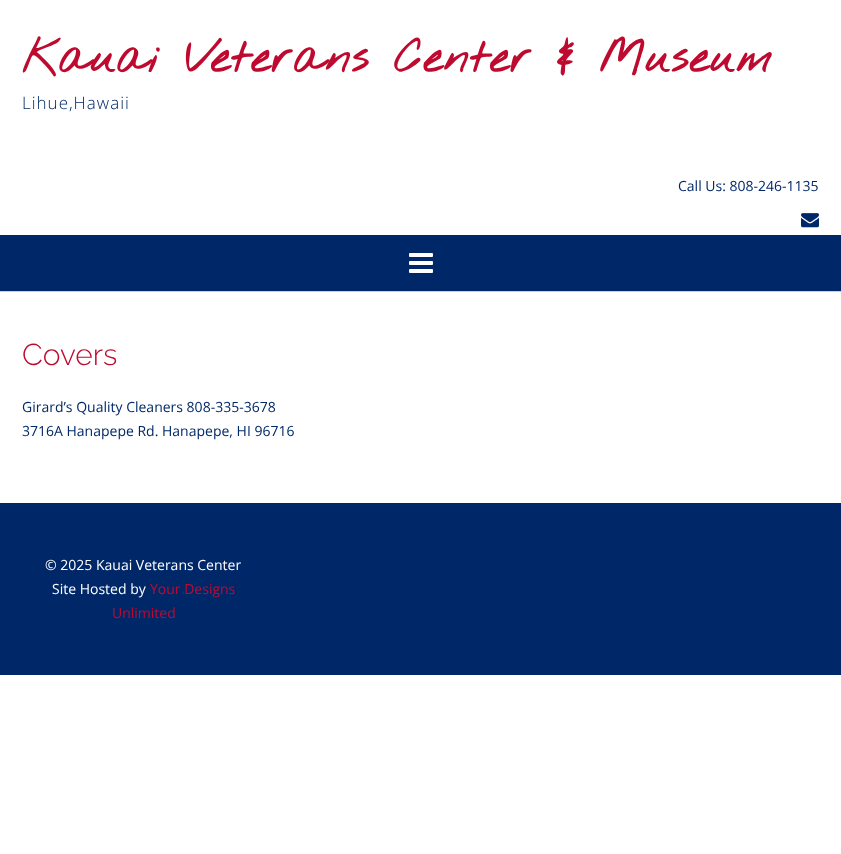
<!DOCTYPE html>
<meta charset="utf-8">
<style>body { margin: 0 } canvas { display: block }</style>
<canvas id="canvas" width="841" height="854"></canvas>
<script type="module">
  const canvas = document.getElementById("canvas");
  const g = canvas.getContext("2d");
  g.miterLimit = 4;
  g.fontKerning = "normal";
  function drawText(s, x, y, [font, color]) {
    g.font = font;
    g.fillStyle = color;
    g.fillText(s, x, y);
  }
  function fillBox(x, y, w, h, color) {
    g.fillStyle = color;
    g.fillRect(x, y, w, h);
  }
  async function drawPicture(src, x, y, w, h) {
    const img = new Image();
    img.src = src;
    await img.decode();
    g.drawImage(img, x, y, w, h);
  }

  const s1 = ["bold 45px Nothing You Could Do", "#BF0A30"];
  const s2 = ["300 17px Open Sans", "#002868"];
  const s3 = ["14px Open Sans", "#002868"];
  const s4 = ["300 30px Raleway", "#BF0A30"];
  const s5 = ["14px Open Sans", "#FFFFFF"];
  const s6 = ["14px Open Sans", "#BF0A30"];

  fillBox(0, 0, 841, 854, "#FFFFFF");
  g.letterSpacing = "1px";
  drawText("Kauai Veterans Center & Museum", 22, 72, s1);
  drawText("Lihue,Hawaii", 22, 109, s2);
  g.letterSpacing = "0px";
  drawText("Call Us: 808-246-1135", 678, 191, s3);
  await drawPicture("pic1.png", 801, 213, 18, 15);
  fillBox(0, 235, 841, 56, "#002868");
  fillBox(0, 291, 841, 1, "#CACFD0");
  await drawPicture("pic2.png", 409, 253, 24, 20);
  drawText("Covers", 22, 365, s4);
  drawText("Girard’s Quality Cleaners 808-335-3678", 22, 412, s3);
  drawText("3716A Hanapepe Rd. Hanapepe, HI 96716", 22, 436, s3);
  fillBox(0, 503, 841, 172, "#002868");
  drawText("© 2025 Kauai Veterans Center", 45, 570, s5);
  drawText("Site Hosted by", 52, 594, s5);
  drawText("Your Designs", 150, 594, s6);
  drawText("Unlimited", 112, 618, s6);
</script>
